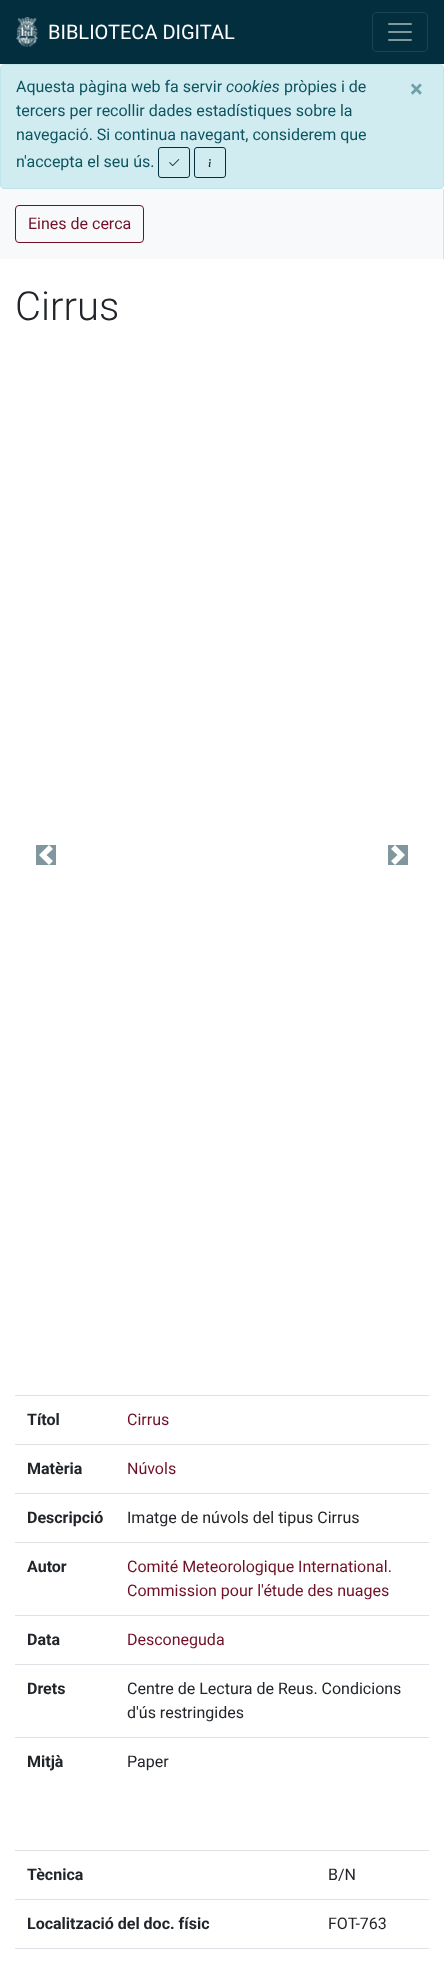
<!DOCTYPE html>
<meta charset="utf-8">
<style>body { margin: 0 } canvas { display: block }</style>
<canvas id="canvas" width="444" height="1967"></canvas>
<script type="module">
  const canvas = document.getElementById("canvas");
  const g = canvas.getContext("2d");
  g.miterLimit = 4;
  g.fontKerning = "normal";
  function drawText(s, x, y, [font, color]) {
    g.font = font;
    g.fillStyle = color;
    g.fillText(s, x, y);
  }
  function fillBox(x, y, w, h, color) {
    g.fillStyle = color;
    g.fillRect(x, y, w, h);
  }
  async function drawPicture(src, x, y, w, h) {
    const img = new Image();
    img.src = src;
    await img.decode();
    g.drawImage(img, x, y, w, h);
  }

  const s1 = ["20px Roboto", "#FFFFFF"];
  const s2 = ["16px Roboto", "#0C5460"];
  const s3 = ["italic 16px Roboto", "#0C5460"];
  const s4 = ["bold 24px Roboto", "#6FA0A9"];
  const s5 = ["16px Roboto", "#710F26"];
  const s6 = ["300 40px Roboto", "#212529"];
  const s7 = ["bold 16px Roboto", "#212529"];
  const s8 = ["16px Roboto", "#212529"];

  fillBox(0, 0, 444, 1967, "#FFFFFF");
  fillBox(0, 0, 444, 64, "#022E3D");
  await drawPicture("pic1.png", 16, 17, 22, 30);
  drawText("BIBLIOTECA DIGITAL", 48, 39, s1);
  g.beginPath();
  g.roundRect(372.5, 12.5, 55, 39, 3.5);
  g.strokeStyle = "#1B4350";
  g.stroke();
  await drawPicture("pic2.png", 388, 23, 24, 18);
  g.fillStyle = "#D1ECF1";
  g.beginPath();
  g.roundRect(0.5, 64.5, 443, 124, 3.5);
  g.fill();
  g.strokeStyle = "#BEE5EB";
  g.stroke();
  drawText("Aquesta pàgina web fa servir", 16, 92, s2);
  drawText("cookies", 226, 92, s3);
  drawText("pròpies i de", 284, 92, s2);
  drawText("×", 410, 97, s4);
  drawText("tercers per recollir dades estadístiques sobre la", 16, 116, s2);
  drawText("navegació. Si continua navegant, considerem que", 16, 140, s2);
  drawText("n'accepta el seu ús.", 16, 167, s2);
  g.beginPath();
  g.roundRect(158.5, 147.5, 31, 30, 2.5);
  g.strokeStyle = "#022E3D";
  g.stroke();
  await drawPicture("pic3.png", 169, 159, 11, 7);
  g.beginPath();
  g.roundRect(194.5, 147.5, 31, 30, 2.5);
  g.stroke();
  await drawPicture("pic4.png", 208, 159, 3, 8);
  fillBox(0, 189, 443, 70, "#F8F9FA");
  fillBox(443, 189, 1, 70, "#DFE0E1");
  g.beginPath();
  g.roundRect(15.5, 205.5, 128, 37, 3.5);
  g.strokeStyle = "#710F26";
  g.stroke();
  drawText("Eines de cerca", 28, 229, s5);
  drawText("Cirrus", 15, 320, s6);
  fillBox(36, 845, 20, 20, "#81979E");
  g.fillStyle = "#FFFFFF";
  g.beginPath();
  g.moveTo(49, 845);
  g.lineTo(39, 855);
  g.lineTo(49, 865);
  g.lineTo(53, 861);
  g.lineTo(46.5, 855);
  g.lineTo(53, 849);
  g.closePath();
  g.fill();
  fillBox(388, 845, 20, 20, "#81979E");
  g.fillStyle = "#FFFFFF";
  g.beginPath();
  g.moveTo(395, 845);
  g.lineTo(391, 849);
  g.lineTo(397.5, 855);
  g.lineTo(391, 861);
  g.lineTo(395, 865);
  g.lineTo(405, 855);
  g.closePath();
  g.fill();
  drawText("Títol", 27, 1425, s7);
  fillBox(15, 1395, 414, 1, "#DEE2E6");
  drawText("Cirrus", 127, 1425, s5);
  drawText("Matèria", 27, 1474, s7);
  fillBox(15, 1444, 414, 1, "#DEE2E6");
  drawText("Núvols", 127, 1474, s5);
  drawText("Descripció", 27, 1523, s7);
  fillBox(15, 1493, 414, 1, "#DEE2E6");
  drawText("Imatge de núvols del tipus Cirrus", 127, 1523, s8);
  drawText("Autor", 27, 1572, s7);
  fillBox(15, 1542, 414, 1, "#DEE2E6");
  drawText("Comité Meteorologique International.", 127, 1572, s5);
  drawText("Commission pour l'étude des nuages", 127, 1596, s5);
  drawText("Data", 27, 1645, s7);
  fillBox(15, 1615, 414, 1, "#DEE2E6");
  drawText("Desconeguda", 127, 1645, s5);
  drawText("Drets", 27, 1694, s7);
  fillBox(15, 1664, 414, 1, "#DEE2E6");
  drawText("Centre de Lectura de Reus. Condicions", 127, 1694, s8);
  drawText("d'ús restringides", 127, 1718, s8);
  drawText("Mitjà", 27, 1767, s7);
  fillBox(15, 1737, 414, 1, "#DEE2E6");
  drawText("Paper", 127, 1767, s8);
  drawText("Tècnica", 27, 1880, s7);
  fillBox(15, 1850, 414, 1, "#DEE2E6");
  drawText("B/N", 328, 1880, s8);
  drawText("Localització del doc. físic", 27, 1929, s7);
  fillBox(15, 1899, 414, 1, "#DEE2E6");
  drawText("FOT-763", 328, 1929, s8);
  fillBox(15, 1948, 414, 1, "#DEE2E6");
</script>
